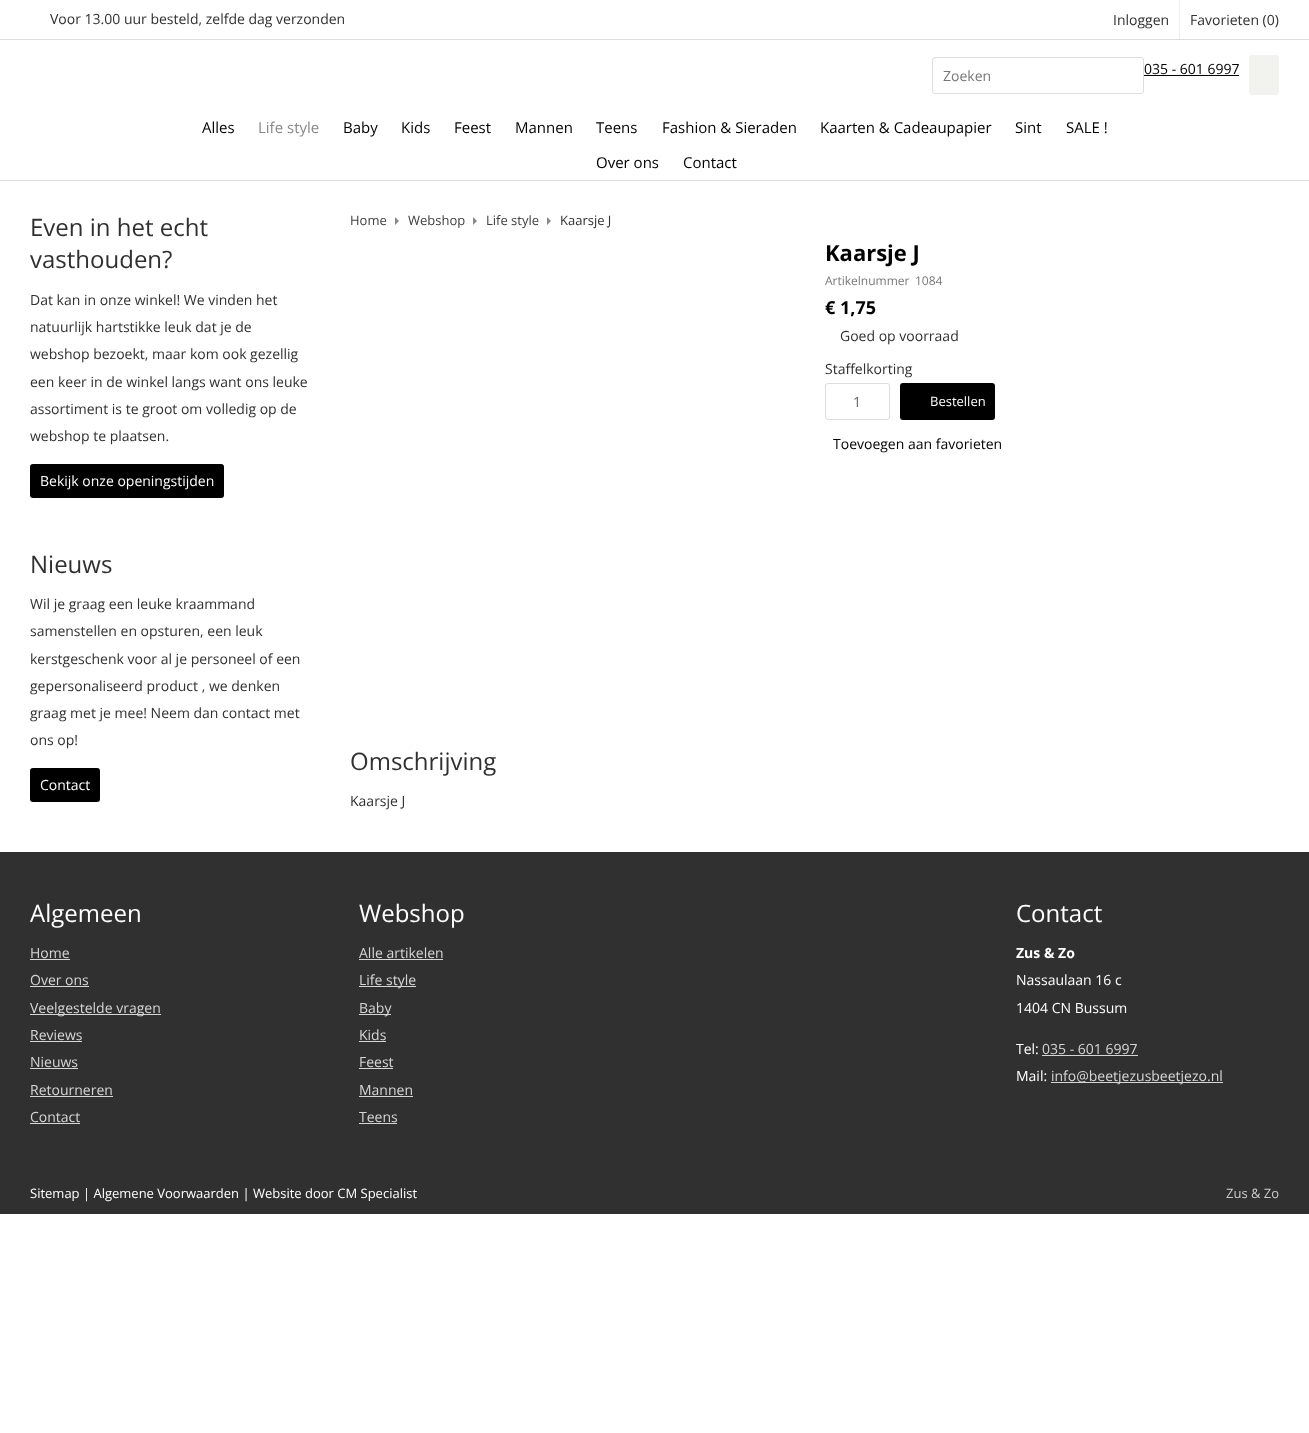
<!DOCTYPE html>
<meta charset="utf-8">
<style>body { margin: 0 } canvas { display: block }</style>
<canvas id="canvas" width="1309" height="1433"></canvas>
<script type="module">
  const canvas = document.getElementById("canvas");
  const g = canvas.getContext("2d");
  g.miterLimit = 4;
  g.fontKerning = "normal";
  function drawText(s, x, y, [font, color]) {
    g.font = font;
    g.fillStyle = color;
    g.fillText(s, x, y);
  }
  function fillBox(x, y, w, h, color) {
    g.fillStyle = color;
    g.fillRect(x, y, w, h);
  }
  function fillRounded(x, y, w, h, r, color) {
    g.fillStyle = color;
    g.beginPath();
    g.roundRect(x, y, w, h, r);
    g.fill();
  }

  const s1 = ["14px Open Sans", "#303030"];
  const s2 = ["14px Open Sans", "#777777"];
  const s3 = ["14px Open Sans", "#000000"];
  const s4 = ["15px Open Sans", "#000000"];
  const s5 = ["15px Open Sans", "#888888"];
  const s6 = ["24px Open Sans", "#303030"];
  const s7 = ["14px Open Sans", "#FFFFFF"];
  const s8 = ["13px Open Sans", "#404040"];
  const s9 = ["13px Open Sans", "#303030"];
  const s10 = ["bold 22px Open Sans", "#000000"];
  const s11 = ["12px Open Sans", "#777777"];
  const s12 = ["bold 18px Open Sans", "#000000"];
  const s13 = ["14px Open Sans", "#666666"];
  const s14 = ["13px Open Sans", "#FFFFFF"];
  const s15 = ["24px Open Sans", "#FFFFFF"];
  const s16 = ["14px Open Sans", "#D6D6D6"];
  const s17 = ["bold 14px Open Sans", "#FFFFFF"];
  const s18 = ["13px Open Sans", "#CBCBCB"];

  fillBox(0, 0, 1309, 1433, "#FFFFFF");
  drawText("Voor 13.00 uur besteld, zelfde dag verzonden", 50, 24, s1);
  fillBox(1179, 0, 1, 39, "#EEEEEE");
  drawText("Inloggen", 1113, 25, s1);
  drawText("Favorieten (0)", 1190, 25, s1);
  fillBox(0, 39, 1309, 1, "#DDDDDD");
  fillBox(0, 180, 1309, 1, "#DDDDDD");
  g.beginPath();
  g.roundRect(932.5, 57.5, 211, 36, 2.5);
  g.strokeStyle = "#DDDDDD";
  g.stroke();
  drawText("Zoeken", 943, 81, s2);
  drawText("035 - 601 6997", 1144, 74, s3);
  fillBox(1144, 75, 95, 1, "#000000");
  fillRounded(1249, 55, 30, 40, 3, "#F2F2EF");
  drawText("Alles", 202, 133, s4);
  drawText("Life style", 258, 133, s5);
  drawText("Baby", 343, 133, s4);
  drawText("Kids", 401, 133, s4);
  drawText("Feest", 454, 133, s4);
  drawText("Mannen", 515, 133, s4);
  drawText("Teens", 596, 133, s4);
  drawText("Fashion & Sieraden", 662, 133, s4);
  drawText("Kaarten & Cadeaupapier", 820, 133, s4);
  drawText("Sint", 1015, 133, s4);
  drawText("SALE !", 1066, 133, s4);
  drawText("Over ons", 596, 168, s4);
  drawText("Contact", 683, 168, s4);
  drawText("Even in het echt", 30, 236, s6);
  drawText("vasthouden?", 30, 268, s6);
  drawText("Dat kan in onze winkel! We vinden het", 30, 305, s1);
  drawText("natuurlijk hartstikke leuk dat je de", 30, 332, s1);
  drawText("webshop bezoekt, maar kom ook gezellig", 30, 359, s1);
  drawText("een keer in de winkel langs want ons leuke", 30, 387, s1);
  drawText("assortiment is te groot om volledig op de", 30, 414, s1);
  drawText("webshop te plaatsen.", 30, 441, s1);
  fillRounded(30, 464, 194, 34, 3, "#000000");
  drawText("Bekijk onze openingstijden", 40, 486, s7);
  drawText("Nieuws", 30, 573, s6);
  drawText("Wil je graag een leuke kraammand", 30, 609, s1);
  drawText("samenstellen en opsturen, een leuk", 30, 636, s1);
  drawText("kerstgeschenk voor al je personeel of een", 30, 664, s1);
  drawText("gepersonaliseerd product , we denken", 30, 691, s1);
  drawText("graag met je mee! Neem dan contact met", 30, 718, s1);
  drawText("ons op!", 30, 745, s1);
  fillRounded(30, 768, 70, 34, 3, "#000000");
  drawText("Contact", 40, 790, s7);
  drawText("Home", 350, 225, s8);
  g.fillStyle = "#888888";
  g.beginPath();
  g.moveTo(395, 225);
  g.lineTo(395, 217);
  g.lineTo(399, 221);
  g.closePath();
  g.fill();
  drawText("Webshop", 408, 225, s8);
  g.fillStyle = "#888888";
  g.beginPath();
  g.moveTo(473, 225);
  g.lineTo(473, 217);
  g.lineTo(477, 221);
  g.closePath();
  g.fill();
  drawText("Life style", 486, 225, s8);
  g.fillStyle = "#888888";
  g.beginPath();
  g.moveTo(547, 225);
  g.lineTo(547, 217);
  g.lineTo(551, 221);
  g.closePath();
  g.fill();
  drawText("Kaarsje J", 560, 225, s9);
  drawText("Kaarsje J", 825, 261, s10);
  drawText("Artikelnummer", 825, 285, s11);
  drawText("1084", 915, 285, s11);
  drawText("€ 1,75", 825, 314, s12);
  drawText("Goed op voorraad", 840, 341, s1);
  drawText("Staffelkorting", 825, 374, s1);
  g.beginPath();
  g.roundRect(825.5, 383.5, 64, 36, 2.5);
  g.stroke();
  drawText("1", 853, 407, s13);
  fillRounded(900, 383, 95, 37, 3, "#000000");
  drawText("Bestellen", 930, 406, s14);
  drawText("Toevoegen aan favorieten", 833, 449, s3);
  drawText("Omschrijving", 350, 770, s6);
  drawText("Kaarsje J", 350, 806, s1);
  fillBox(0, 852, 1309, 362, "#303030");
  drawText("Algemeen", 30, 922, s15);
  drawText("Home", 30, 958, s16);
  fillBox(30, 959, 40, 1, "#D6D6D6");
  drawText("Over ons", 30, 985, s16);
  fillBox(30, 986, 59, 1, "#D6D6D6");
  fillBox(30, 1014, 131, 1, "#D6D6D6");
  drawText("Veelgestelde vragen", 30, 1013, s16);
  drawText("Reviews", 30, 1040, s16);
  fillBox(30, 1041, 52, 1, "#D6D6D6");
  drawText("Nieuws", 30, 1067, s16);
  fillBox(30, 1068, 48, 1, "#D6D6D6");
  drawText("Retourneren", 30, 1095, s16);
  fillBox(30, 1096, 83, 1, "#D6D6D6");
  drawText("Contact", 30, 1122, s16);
  fillBox(30, 1123, 50, 1, "#D6D6D6");
  drawText("Webshop", 359, 922, s15);
  drawText("Alle artikelen", 359, 958, s16);
  fillBox(359, 959, 84, 1, "#D6D6D6");
  fillBox(359, 986, 57, 1, "#D6D6D6");
  drawText("Life style", 359, 985, s16);
  fillBox(359, 1014, 32, 1, "#D6D6D6");
  drawText("Baby", 359, 1013, s16);
  drawText("Kids", 359, 1040, s16);
  fillBox(359, 1041, 27, 1, "#D6D6D6");
  drawText("Feest", 359, 1067, s16);
  fillBox(359, 1068, 34, 1, "#D6D6D6");
  drawText("Mannen", 359, 1095, s16);
  fillBox(359, 1096, 54, 1, "#D6D6D6");
  drawText("Teens", 359, 1122, s16);
  fillBox(359, 1123, 38, 1, "#D6D6D6");
  drawText("Contact", 1016, 922, s15);
  drawText("Zus & Zo", 1016, 958, s17);
  drawText("Nassaulaan 16 c", 1016, 985, s7);
  drawText("1404 CN Bussum", 1016, 1013, s7);
  drawText("Tel:", 1016, 1054, s7);
  drawText("035 - 601 6997", 1042, 1054, s16);
  fillBox(1042, 1055, 96, 1, "#D6D6D6");
  drawText("Mail:", 1016, 1081, s7);
  fillBox(1051, 1082, 172, 1, "#D6D6D6");
  drawText("info@beetjezusbeetjezo.nl", 1051, 1081, s16);
  drawText("Sitemap | Algemene Voorwaarden | Website door CM Specialist", 30, 1198, s14);
  drawText("Zus & Zo", 1226, 1198, s18);
</script>
